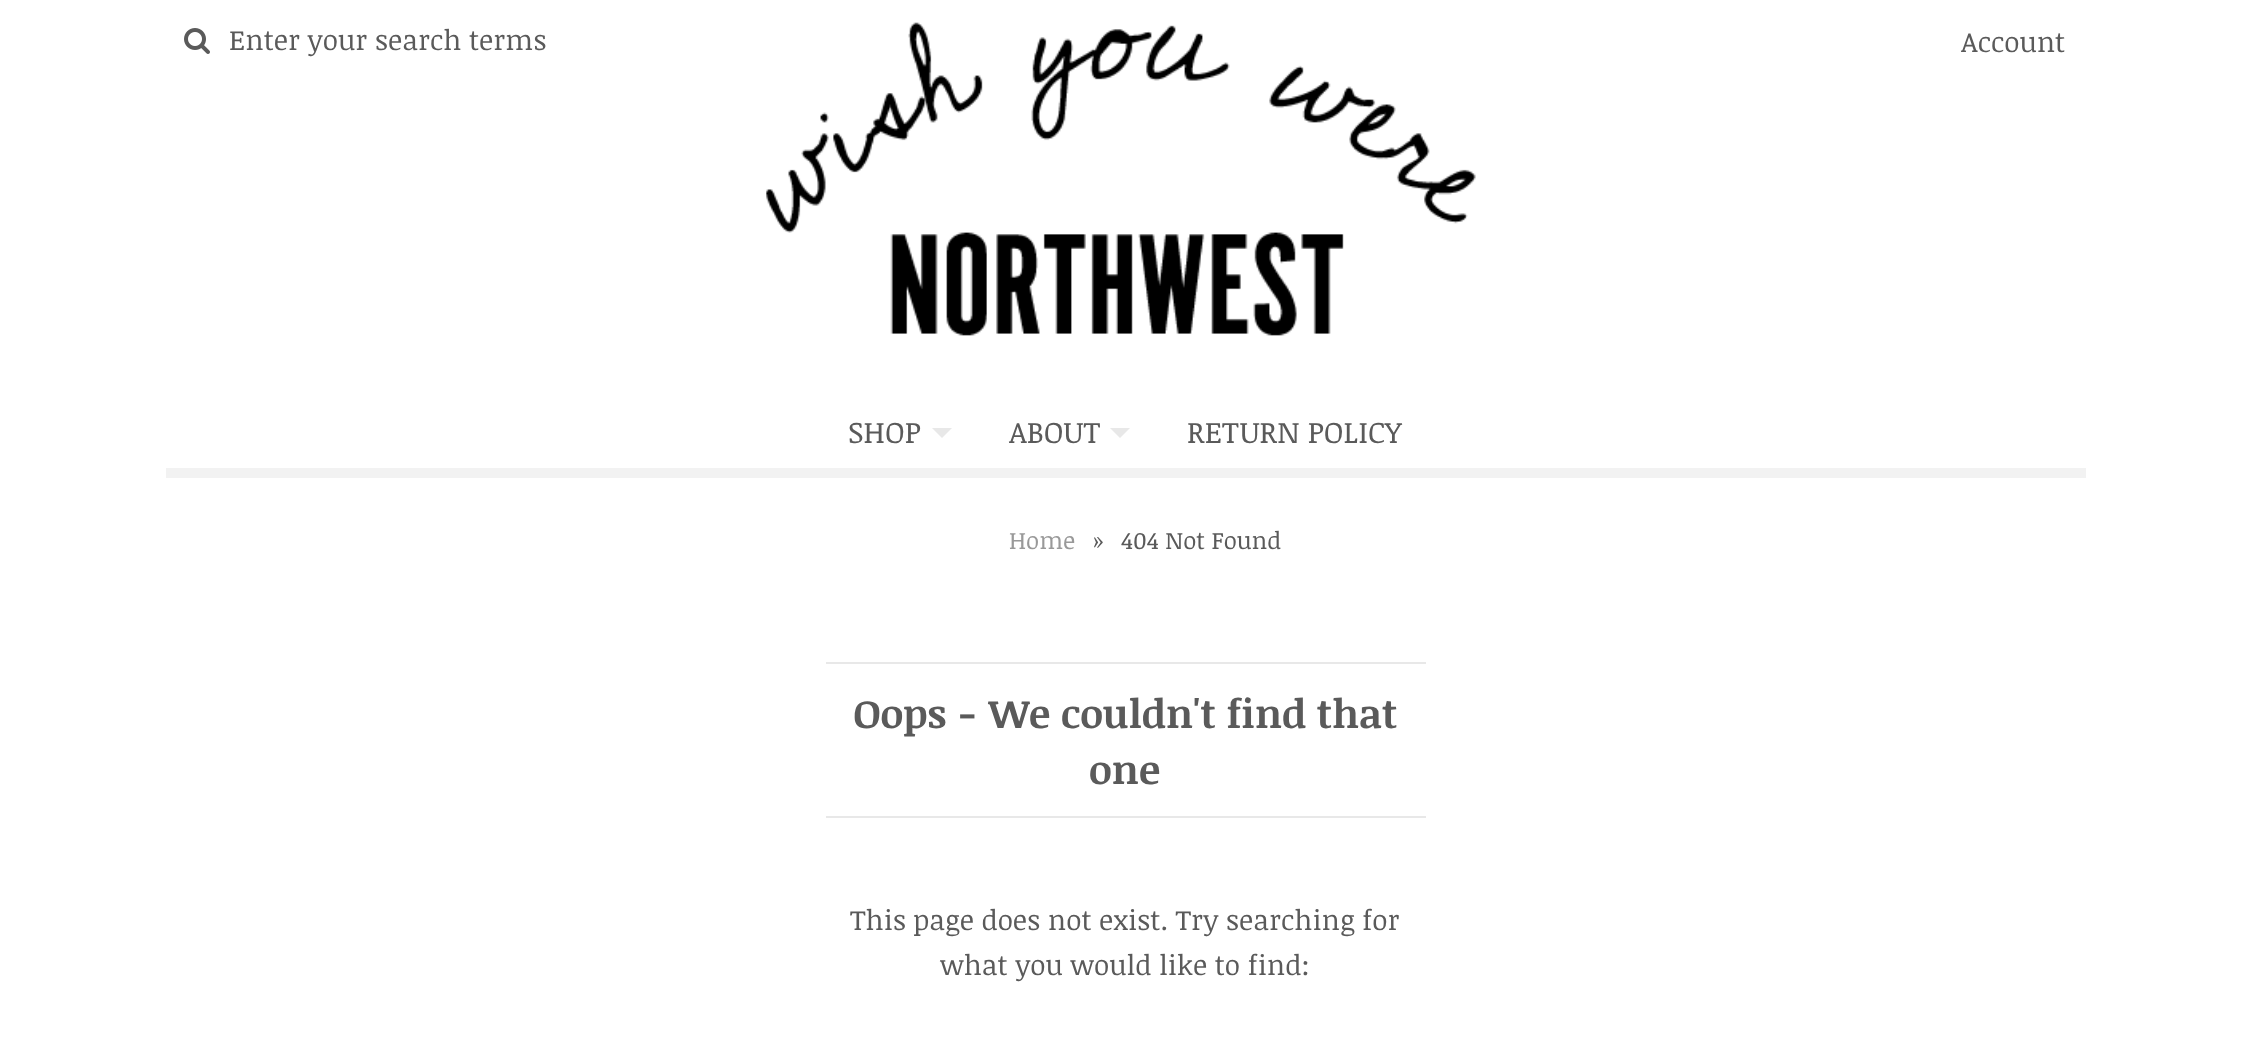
<!DOCTYPE html>
<meta charset="utf-8">
<style>body { margin: 0 } canvas { display: block }</style>
<canvas id="canvas" width="2249" height="1048"></canvas>
<script type="module">
  const canvas = document.getElementById("canvas");
  const g = canvas.getContext("2d");
  g.miterLimit = 4;
  g.fontKerning = "normal";
  function drawText(s, x, y, [font, color]) {
    g.font = font;
    g.fillStyle = color;
    g.fillText(s, x, y);
  }
  function fillBox(x, y, w, h, color) {
    g.fillStyle = color;
    g.fillRect(x, y, w, h);
  }
  async function drawPicture(src, x, y, w, h) {
    const img = new Image();
    img.src = src;
    await img.decode();
    g.drawImage(img, x, y, w, h);
  }

  const s1 = ["28px Noticia Text", "#5A5A5A"];
  const s2 = ["30px Noticia Text", "#5A5A5A"];
  const s3 = ["24px Noticia Text", "#999999"];
  const s4 = ["24px Noticia Text", "#5A5A5A"];
  const s5 = ["bold 40px Noticia Text", "#5A5A5A"];

  fillBox(0, 0, 2249, 1048, "#FFFFFF");
  await drawPicture("pic1.png", 184, 28, 26, 26);
  drawText("Enter your search terms", 229, 50, s1);
  await drawPicture("pic2.png", 766, 22, 710, 314);
  drawText("Account", 1961, 52, s1);
  fillBox(166, 468, 1920, 10, "#F2F2F2");
  drawText("SHOP", 848, 443, s2);
  g.fillStyle = "#E8E8E8";
  g.beginPath();
  g.moveTo(932, 428);
  g.lineTo(952, 428);
  g.lineTo(942, 438);
  g.closePath();
  g.fill();
  drawText("ABOUT", 1009, 443, s2);
  g.fillStyle = "#E8E8E8";
  g.beginPath();
  g.moveTo(1110, 428);
  g.lineTo(1130, 428);
  g.lineTo(1120, 438);
  g.closePath();
  g.fill();
  drawText("RETURN POLICY", 1187, 443, s2);
  drawText("Home", 1009, 549, s3);
  drawText("»", 1092, 549, s4);
  drawText("404 Not Found", 1121, 549, s4);
  fillBox(826, 662, 600, 2, "#E8E8E8");
  fillBox(826, 816, 600, 2, "#E8E8E8");
  drawText("Oops - We couldn't find that", 853, 728, s5);
  drawText("one", 1089, 784, s5);
  drawText("This page does not exist. Try searching for", 850, 930, s1);
  drawText("what you would like to find:", 940, 975, s1);
</script>
